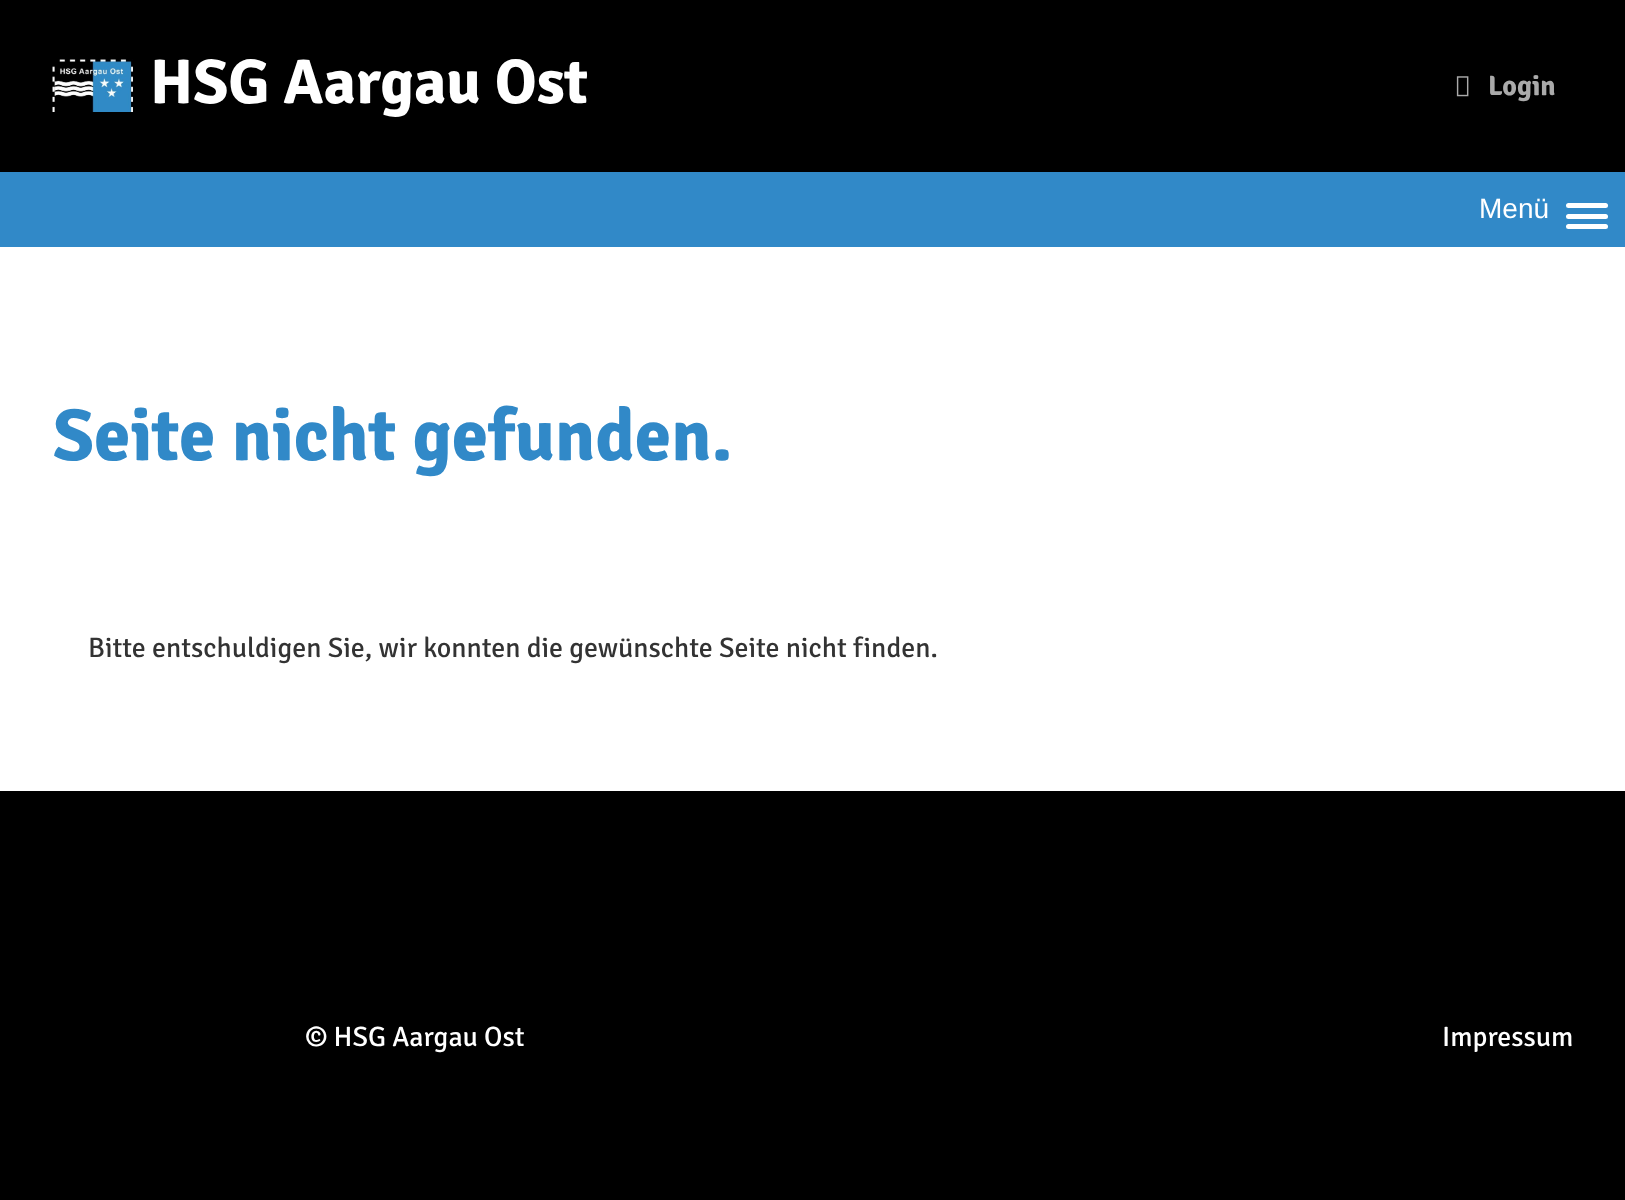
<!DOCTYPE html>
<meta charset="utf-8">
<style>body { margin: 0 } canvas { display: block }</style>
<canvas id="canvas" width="1625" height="1200"></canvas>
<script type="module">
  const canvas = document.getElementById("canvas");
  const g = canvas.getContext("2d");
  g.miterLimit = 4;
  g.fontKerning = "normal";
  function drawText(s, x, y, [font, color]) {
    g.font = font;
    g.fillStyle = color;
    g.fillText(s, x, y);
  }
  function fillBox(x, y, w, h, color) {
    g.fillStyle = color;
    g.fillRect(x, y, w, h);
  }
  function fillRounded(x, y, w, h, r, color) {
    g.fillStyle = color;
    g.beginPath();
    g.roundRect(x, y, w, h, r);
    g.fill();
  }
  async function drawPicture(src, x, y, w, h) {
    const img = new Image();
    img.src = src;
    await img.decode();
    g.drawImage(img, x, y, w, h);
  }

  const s1 = ["bold 63px Signika", "#FFFFFF"];
  const s2 = ["bold 28px Signika", "#AAAAAA"];
  const s3 = ["28px Liberation Sans", "#FFFFFF"];
  const s4 = ["bold 73.5px Signika", "#3189C8"];
  const s5 = ["28px Signika", "#333333"];
  const s6 = ["28px Signika", "#FFFFFF"];

  fillBox(0, 0, 1625, 1200, "#FFFFFF");
  fillBox(0, 0, 1625, 172, "#000000");
  await drawPicture("pic1.png", 52, 59, 81, 53);
  drawText("HSG Aargau Ost", 150, 103, s1);
  await drawPicture("pic2.png", 1456, 76, 13, 21);
  drawText("Login", 1488, 95, s2);
  fillBox(0, 172, 1625, 75, "#3189C8");
  drawText("Menü", 1479, 218, s3);
  fillRounded(1566, 203, 42, 5, 2.5, "#FFFFFF");
  fillRounded(1566, 214, 42, 5, 2.5, "#FFFFFF");
  fillRounded(1566, 224, 42, 5, 2.5, "#FFFFFF");
  drawText("Seite nicht gefunden.", 53, 460, s4);
  drawText("Bitte entschuldigen Sie, wir konnten die gewünschte Seite nicht finden.", 88, 657, s5);
  fillBox(0, 791, 1625, 409, "#000000");
  drawText("© HSG Aargau Ost", 305, 1046, s6);
  drawText("Impressum", 1442, 1046, s6);
</script>
